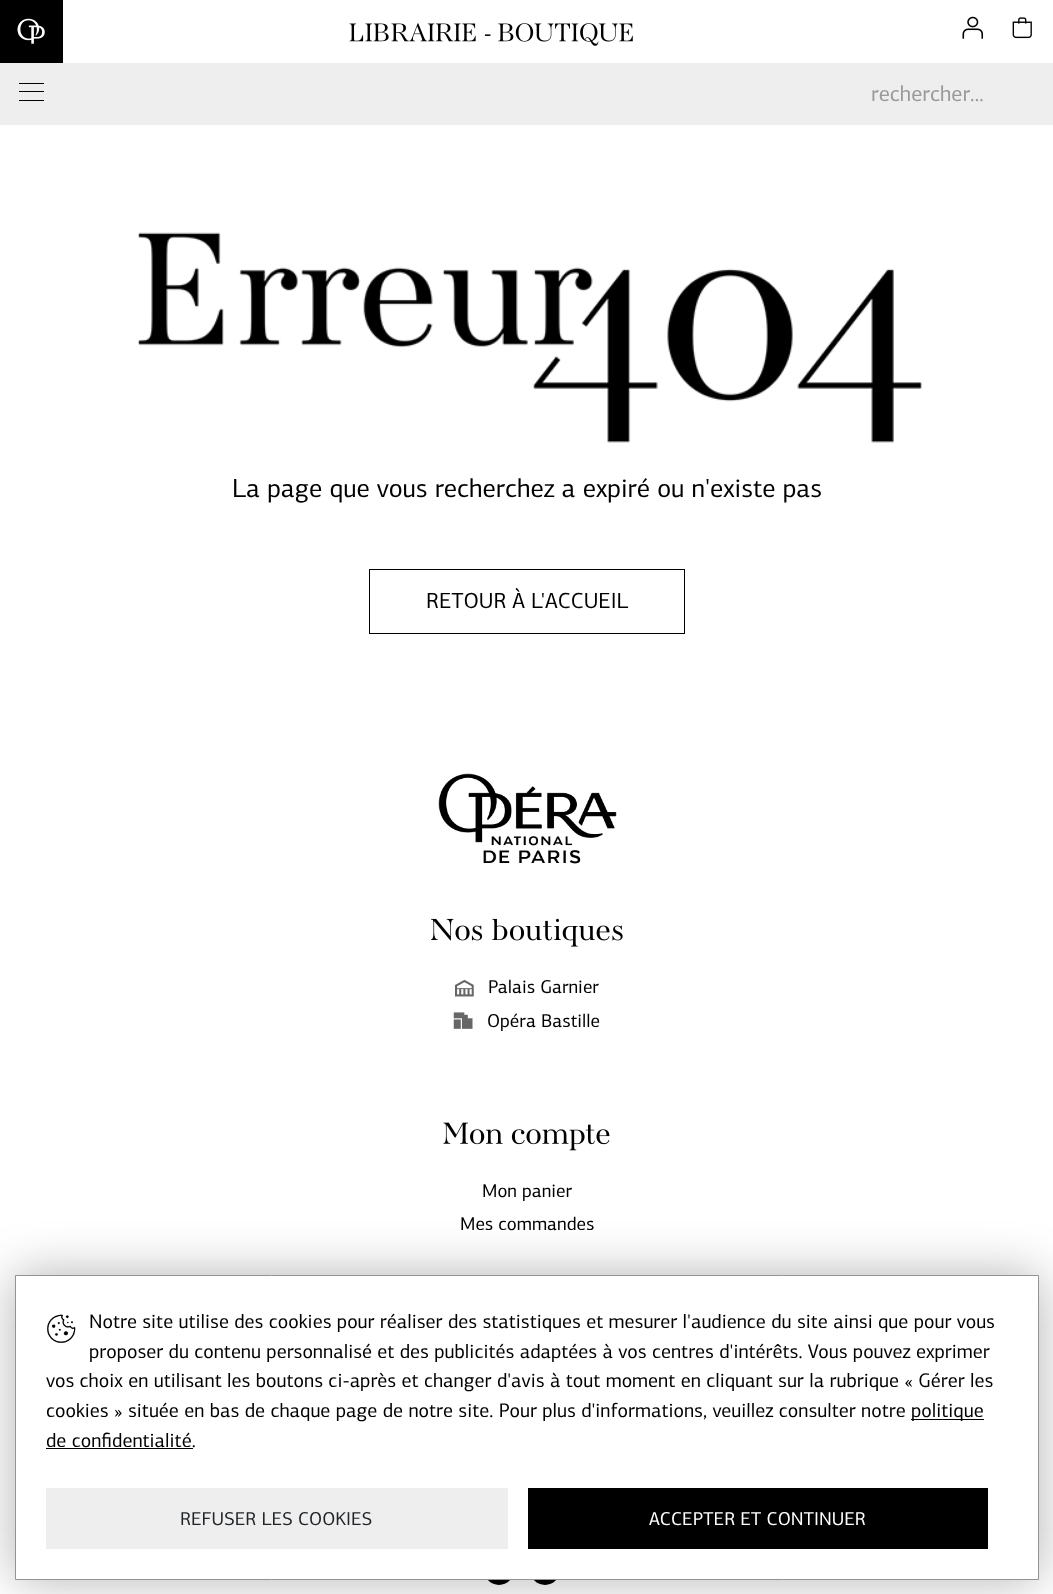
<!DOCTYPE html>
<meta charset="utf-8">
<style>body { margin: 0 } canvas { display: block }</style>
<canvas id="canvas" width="1053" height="1594"></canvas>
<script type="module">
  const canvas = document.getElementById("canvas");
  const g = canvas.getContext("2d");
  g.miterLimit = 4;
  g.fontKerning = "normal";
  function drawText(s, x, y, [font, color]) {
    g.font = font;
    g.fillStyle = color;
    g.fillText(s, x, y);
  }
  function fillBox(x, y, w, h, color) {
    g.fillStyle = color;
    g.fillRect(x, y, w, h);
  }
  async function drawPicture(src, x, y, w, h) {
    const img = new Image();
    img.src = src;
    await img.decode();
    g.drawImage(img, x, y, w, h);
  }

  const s1 = ["22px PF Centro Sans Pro", "#999999"];
  const s2 = ["26.25px PF Centro Sans Pro", "#000000"];
  const s3 = ["22px PF Centro Sans Pro", "#000000"];
  const s4 = ["18.75px PF Centro Sans Pro", "#000000"];
  const s5 = ["19.8px PF Centro Sans Pro", "#000000"];
  const s6 = ["18.75px PF Centro Sans Pro", "#212529"];
  const s7 = ["18.75px PF Centro Sans Pro", "#FFFFFF"];

  fillBox(0, 0, 1053, 1594, "#FFFFFF");
  fillBox(0, 0, 63, 63, "#000000");
  await drawPicture("pic1.png", 17, 18, 28, 26);
  await drawPicture("pic2.png", 349, 23, 284, 23);
  fillBox(0, 63, 1053, 62, "#EEEEEE");
  fillBox(19, 83, 25, 1, "#000000");
  fillBox(19, 91, 25, 1, "#000000");
  fillBox(19, 100, 25, 1, "#000000");
  await drawPicture("pic3.png", 962, 16, 22, 23);
  await drawPicture("pic4.png", 1012, 17, 20, 22);
  drawText("rechercher...", 871, 101, s1);
  await drawPicture("pic5.png", 138, 232, 784, 211);
  drawText("La page que vous recherchez a expiré ou n'existe pas", 232, 497, s2);
  g.strokeStyle = "#000000";
  g.strokeRect(369.5, 569.5, 315, 64);
  drawText("RETOUR À L'ACCUEIL", 426, 608, s3);
  await drawPicture("pic6.png", 438, 773, 179, 91);
  await drawPicture("pic7.png", 431, 918, 192, 29);
  await drawPicture("pic8.png", 455, 979, 19, 18);
  drawText("Palais Garnier", 488, 993, s4);
  await drawPicture("pic9.png", 453, 1012, 20, 17);
  drawText("Opéra Bastille", 487, 1027, s4);
  await drawPicture("pic10.png", 443, 1122, 167, 29);
  drawText("Mon panier", 482, 1197, s4);
  drawText("Mes commandes", 460, 1230, s4);
  g.beginPath();
  g.arc(499, 1570, 15, 0, Math.PI * 2);
  g.fill();
  g.beginPath();
  g.arc(545, 1570, 15, 0, Math.PI * 2);
  g.fill();
  g.fillStyle = "rgba(0, 0, 0, 0.3)";
  g.filter = "blur(25px)";
  g.beginPath();
  g.rect(15, 1275, 1024, 305);
  g.fill();
  g.filter = "none";
  g.fillStyle = "#FFFFFF";
  g.beginPath();
  g.rect(15.5, 1275.5, 1023, 304);
  g.fill();
  g.strokeStyle = "#939393";
  g.stroke();
  drawText("Notre site utilise des cookies pour réaliser des statistiques et mesurer l'audience du site ainsi que pour vous", 89, 1328, s5);
  drawText("proposer du contenu personnalisé et des publicités adaptées à vos centres d'intérêts. Vous pouvez exprimer", 89, 1358, s5);
  drawText("vos choix en utilisant les boutons ci-après et changer d'avis à tout moment en cliquant sur la rubrique « Gérer les", 46, 1387, s5);
  drawText("cookies » située en bas de chaque page de notre site. Pour plus d'informations, veuillez consulter notre", 46, 1417, s5);
  fillBox(911, 1419, 73, 1, "#000000");
  drawText("politique", 911, 1417, s5);
  drawText("de confidentialité.", 46, 1447, s5);
  fillBox(46, 1448, 147, 1, "#000000");
  await drawPicture("pic11.png", 47, 1314, 29, 29);
  fillBox(46, 1488, 462, 61, "#EEEEEE");
  drawText("REFUSER LES COOKIES", 180, 1525, s6);
  fillBox(528, 1488, 460, 61, "#000000");
  drawText("ACCEPTER ET CONTINUER", 649, 1525, s7);
</script>
